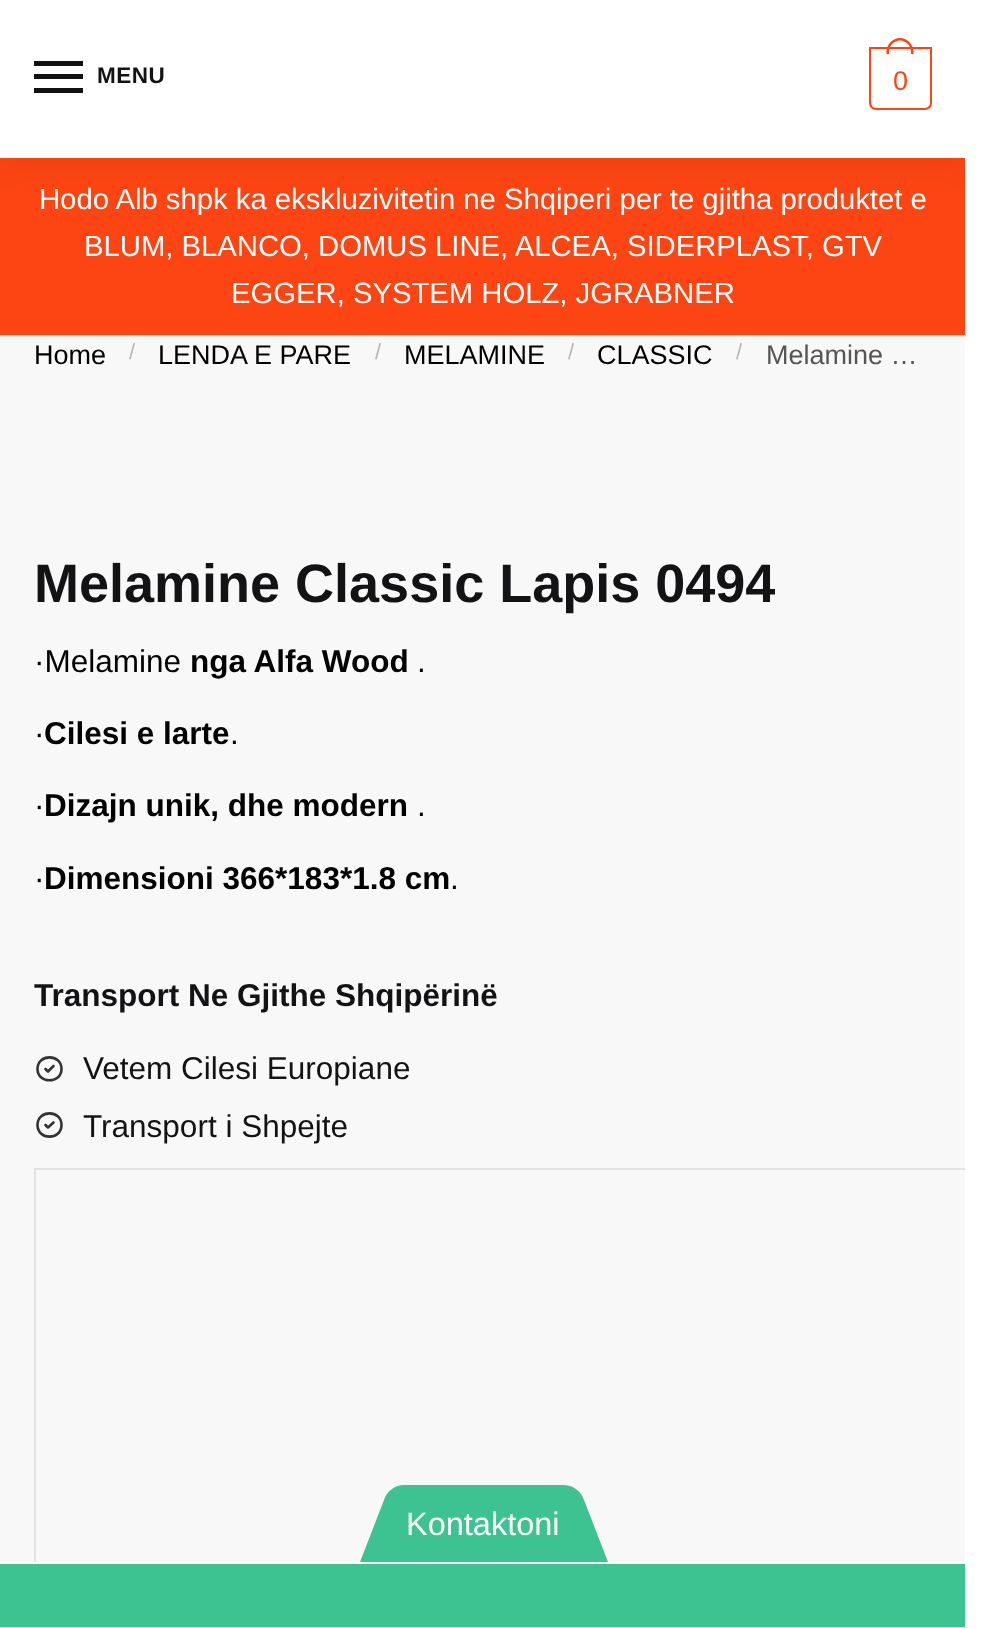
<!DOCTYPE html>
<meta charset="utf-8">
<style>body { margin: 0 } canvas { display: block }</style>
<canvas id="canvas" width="999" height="1628"></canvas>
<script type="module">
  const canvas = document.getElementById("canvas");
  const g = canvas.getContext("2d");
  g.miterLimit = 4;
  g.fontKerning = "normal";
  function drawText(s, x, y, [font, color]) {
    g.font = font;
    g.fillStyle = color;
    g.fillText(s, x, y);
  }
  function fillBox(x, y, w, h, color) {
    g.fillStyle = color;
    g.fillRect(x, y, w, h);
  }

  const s1 = ["bold 22.5px Liberation Sans", "#131315"];
  const s2 = ["27px Liberation Sans", "#FC4513"];
  const s3 = ["29.25px Liberation Sans", "#FFFFFF"];
  const s4 = ["27px Liberation Sans", "#000000"];
  const s5 = ["22px Liberation Sans", "#B7B7B7"];
  const s6 = ["27px Liberation Sans", "#555555"];
  const s7 = ["bold 54px Liberation Sans", "#131315"];
  const s8 = ["31.5px Liberation Sans", "#000000"];
  const s9 = ["bold 31.5px Liberation Sans", "#000000"];
  const s10 = ["bold 31.5px Liberation Sans", "#131315"];
  const s11 = ["31.5px Liberation Sans", "#131315"];
  const s12 = ["32.5px Liberation Sans", "#FFFFFF"];

  fillBox(0, 0, 999, 1628, "#FC4513");
  g.fillStyle = "rgba(0, 0, 0, 0.08)";
  g.filter = "blur(17px)";
  g.beginPath();
  g.rect(0, 2, 965, 158);
  g.fill();
  g.filter = "none";
  fillBox(0, 0, 965, 158, "#FFFFFF");
  fillBox(34, 61, 49, 5, "#111111");
  fillBox(34, 74, 49, 5, "#111111");
  g.letterSpacing = "0.5px";
  drawText("MENU", 97, 83, s1);
  fillBox(34, 88, 49, 5, "#111111");
  g.beginPath();
  g.roundRect(870, 48, 61, 61, [0, 0, 6, 6]);
  g.strokeStyle = "#FC4513";
  g.lineWidth = 2;
  g.stroke();
  g.fillStyle = "#FC4513";
  g.beginPath();
  g.moveTo(900, 38);
  g.bezierCurveTo(907.5, 38, 913.5, 44.5, 913.5, 52);
  g.lineTo(913.5, 54);
  g.lineTo(886.5, 54);
  g.lineTo(886.5, 52);
  g.bezierCurveTo(886.5, 44.5, 892.5, 38, 900, 38);
  g.closePath();
  g.moveTo(900, 40.5);
  g.bezierCurveTo(906, 40.5, 911, 45.5, 911, 52);
  g.lineTo(911, 54);
  g.lineTo(889, 54);
  g.lineTo(889, 52);
  g.bezierCurveTo(889, 45.5, 894, 40.5, 900, 40.5);
  g.closePath();
  g.fill("evenodd");
  g.letterSpacing = "-2px";
  drawText("0", 893, 90, s2);
  fillBox(0, 335, 965, 1227, "#F8F8F8");
  g.strokeStyle = "#E2E2E2";
  g.strokeRect(35, 1169, 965, 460);
  fillBox(965, 0, 34, 1628, "#FFFFFF");
  g.letterSpacing = "0px";
  drawText("Hodo Alb shpk ka ekskluzivitetin ne Shqiperi per te gjitha produktet e", 39, 209, s3);
  drawText("BLUM, BLANCO, DOMUS LINE, ALCEA, SIDERPLAST, GTV", 84, 256, s3);
  drawText("EGGER, SYSTEM HOLZ, JGRABNER", 231, 303, s3);
  drawText("Home", 34, 364, s4);
  drawText("/", 129, 359, s5);
  drawText("LENDA E PARE", 158, 364, s4);
  drawText("/", 375, 359, s5);
  drawText("MELAMINE", 404, 364, s4);
  drawText("/", 568, 359, s5);
  drawText("CLASSIC", 597, 364, s4);
  drawText("/", 736, 359, s5);
  drawText("Melamine …", 766, 364, s6);
  drawText("Melamine Classic Lapis 0494", 34, 602, s7);
  drawText("·Melamine", 34, 672, s8);
  drawText("nga Alfa Wood", 190, 672, s9);
  drawText(".", 417, 672, s8);
  drawText("·", 34, 744, s8);
  drawText("Cilesi e larte", 44, 744, s9);
  drawText(".", 230, 744, s8);
  drawText("·", 34, 816, s8);
  drawText("Dizajn unik, dhe modern", 44, 816, s9);
  drawText(".", 417, 816, s8);
  drawText("·", 34, 889, s8);
  drawText("Dimensioni 366*183*1.8 cm", 44, 889, s9);
  drawText(".", 450, 889, s8);
  drawText("Transport Ne Gjithe Shqipërinë", 34, 1006, s10);
  g.beginPath();
  g.moveTo(45.5, 1069);
  g.lineTo(48, 1071.5);
  g.lineTo(53.5, 1066);
  g.moveTo(61.5, 1069);
  g.bezierCurveTo(61.5, 1084, 37.5, 1084, 37.5, 1069);
  g.bezierCurveTo(37.5, 1053.5, 61.5, 1053.5, 61.5, 1069);
  g.closePath();
  g.strokeStyle = "#333333";
  g.lineWidth = 2.6;
  g.lineCap = "round";
  g.lineJoin = "round";
  g.stroke();
  drawText("Vetem Cilesi Europiane", 83, 1079, s11);
  g.beginPath();
  g.moveTo(45.5, 1125);
  g.lineTo(48, 1127.5);
  g.lineTo(53.5, 1122.5);
  g.moveTo(61.5, 1125);
  g.bezierCurveTo(61.5, 1140.5, 37.5, 1140.5, 37.5, 1125);
  g.bezierCurveTo(37.5, 1109.5, 61.5, 1109.5, 61.5, 1125);
  g.closePath();
  g.stroke();
  drawText("Transport i Shpejte", 83, 1137, s11);
  g.fillStyle = "#3CC391";
  g.beginPath();
  g.moveTo(608, 1562);
  g.lineTo(584, 1500);
  g.bezierCurveTo(581, 1491, 573, 1485, 563, 1485);
  g.lineTo(404, 1485);
  g.bezierCurveTo(395, 1485, 387, 1491, 384, 1500);
  g.lineTo(360, 1562);
  g.closePath();
  g.fill();
  drawText("Kontaktoni", 406, 1535, s12);
  fillBox(0, 1564, 965, 63, "#3CC391");
  fillBox(0, 1562, 965, 2, "#FFFFFF");
  fillBox(0, 1627, 965, 1, "#FFFFFF");
</script>
